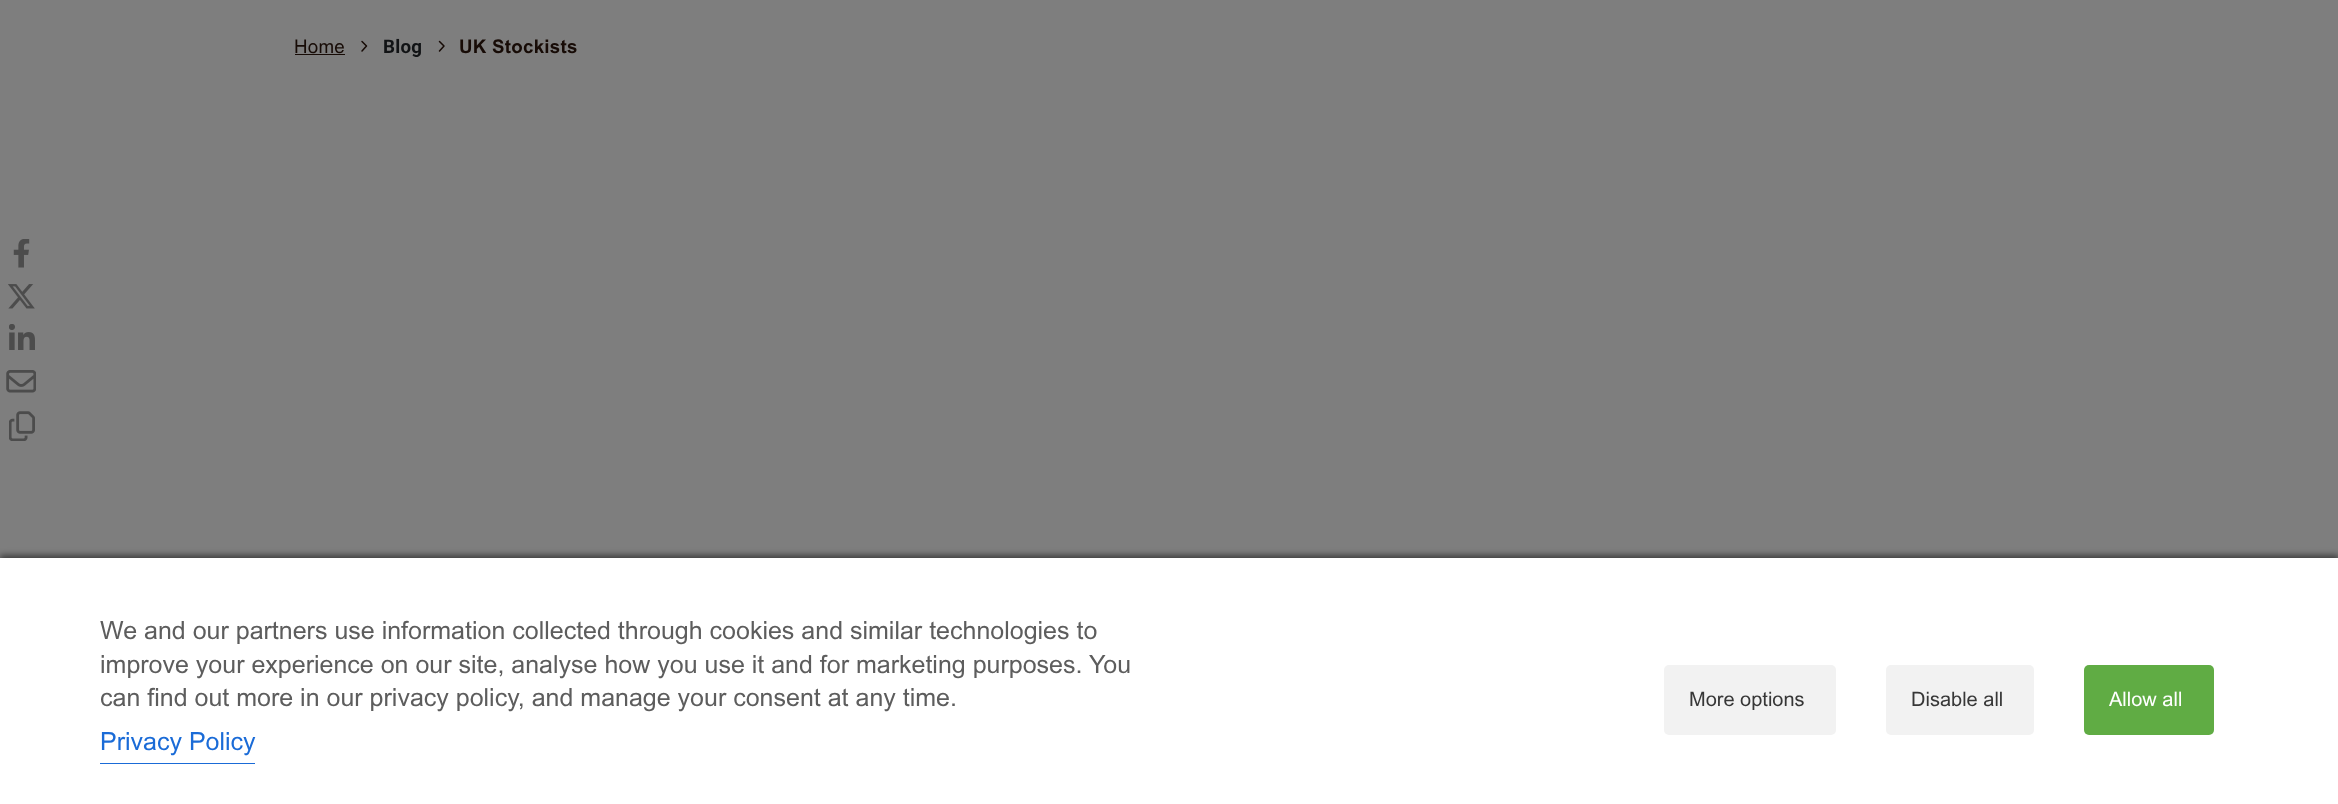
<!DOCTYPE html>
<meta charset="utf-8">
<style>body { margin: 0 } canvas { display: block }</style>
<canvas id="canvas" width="2338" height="804"></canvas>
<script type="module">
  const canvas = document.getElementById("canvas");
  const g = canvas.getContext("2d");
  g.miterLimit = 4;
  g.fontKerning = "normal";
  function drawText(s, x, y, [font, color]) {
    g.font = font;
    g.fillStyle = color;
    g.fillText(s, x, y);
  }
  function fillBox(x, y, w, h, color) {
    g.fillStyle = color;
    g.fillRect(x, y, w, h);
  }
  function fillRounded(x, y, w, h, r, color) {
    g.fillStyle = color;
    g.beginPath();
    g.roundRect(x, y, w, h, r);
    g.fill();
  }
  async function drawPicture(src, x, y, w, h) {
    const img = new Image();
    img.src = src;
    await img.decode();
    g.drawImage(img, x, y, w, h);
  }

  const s1 = ["18.75px Arial", "#170B06"];
  const s2 = ["bold 18.75px Roboto", "#111315"];
  const s3 = ["bold 18.75px Arial", "#170B06"];
  const s4 = ["25px Arial", "#5D5D5D"];
  const s5 = ["25px Arial", "#1A6BD7"];
  const s6 = ["20px Arial", "#373737"];
  const s7 = ["20px Arial", "#FFFFFF"];

  fillBox(0, 0, 2338, 804, "#7E7E7E");
  g.letterSpacing = "0.25px";
  drawText("Home", 294, 53, s1);
  fillBox(295, 54, 50, 1, "#170B06");
  g.beginPath();
  g.moveTo(362, 41.5);
  g.lineTo(366.5, 46);
  g.lineTo(362, 51);
  g.strokeStyle = "#170B06";
  g.lineWidth = 1.5;
  g.lineCap = "round";
  g.lineJoin = "round";
  g.stroke();
  drawText("Blog", 383, 53, s2);
  g.beginPath();
  g.moveTo(439.5, 41.5);
  g.lineTo(444, 46);
  g.lineTo(439.5, 51);
  g.stroke();
  drawText("UK Stockists", 459, 53, s3);
  await drawPicture("pic1.png", 13, 239, 17, 29);
  await drawPicture("pic2.png", 8, 284, 27, 25);
  await drawPicture("pic3.png", 9, 324, 26, 26);
  await drawPicture("pic4.png", 6, 370, 30, 23);
  await drawPicture("pic5.png", 9, 411, 26, 30);
  g.fillStyle = "rgba(0, 0, 0, 0.5)";
  g.filter = "blur(3px)";
  g.beginPath();
  g.rect(0, 555, 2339, 248);
  g.fill();
  g.filter = "none";
  fillBox(0, 558, 2338, 246, "#FFFFFF");
  g.letterSpacing = "0px";
  drawText("We and our partners use information collected through cookies and similar technologies to", 100, 639, s4);
  drawText("improve your experience on our site, analyse how you use it and for marketing purposes. You", 100, 673, s4);
  drawText("can find out more in our privacy policy, and manage your consent at any time.", 100, 706, s4);
  drawText("Privacy Policy", 100, 750, s5);
  fillBox(100, 763, 155, 1, "#1A6BD7");
  fillRounded(1664, 665, 172, 70, 5, "#F2F2F2");
  drawText("More options", 1689, 706, s6);
  fillRounded(1886, 665, 148, 70, 5, "#F2F2F2");
  drawText("Disable all", 1911, 706, s6);
  fillRounded(2084, 665, 130, 70, 5, "#60AC44");
  drawText("Allow all", 2109, 706, s7);
</script>
